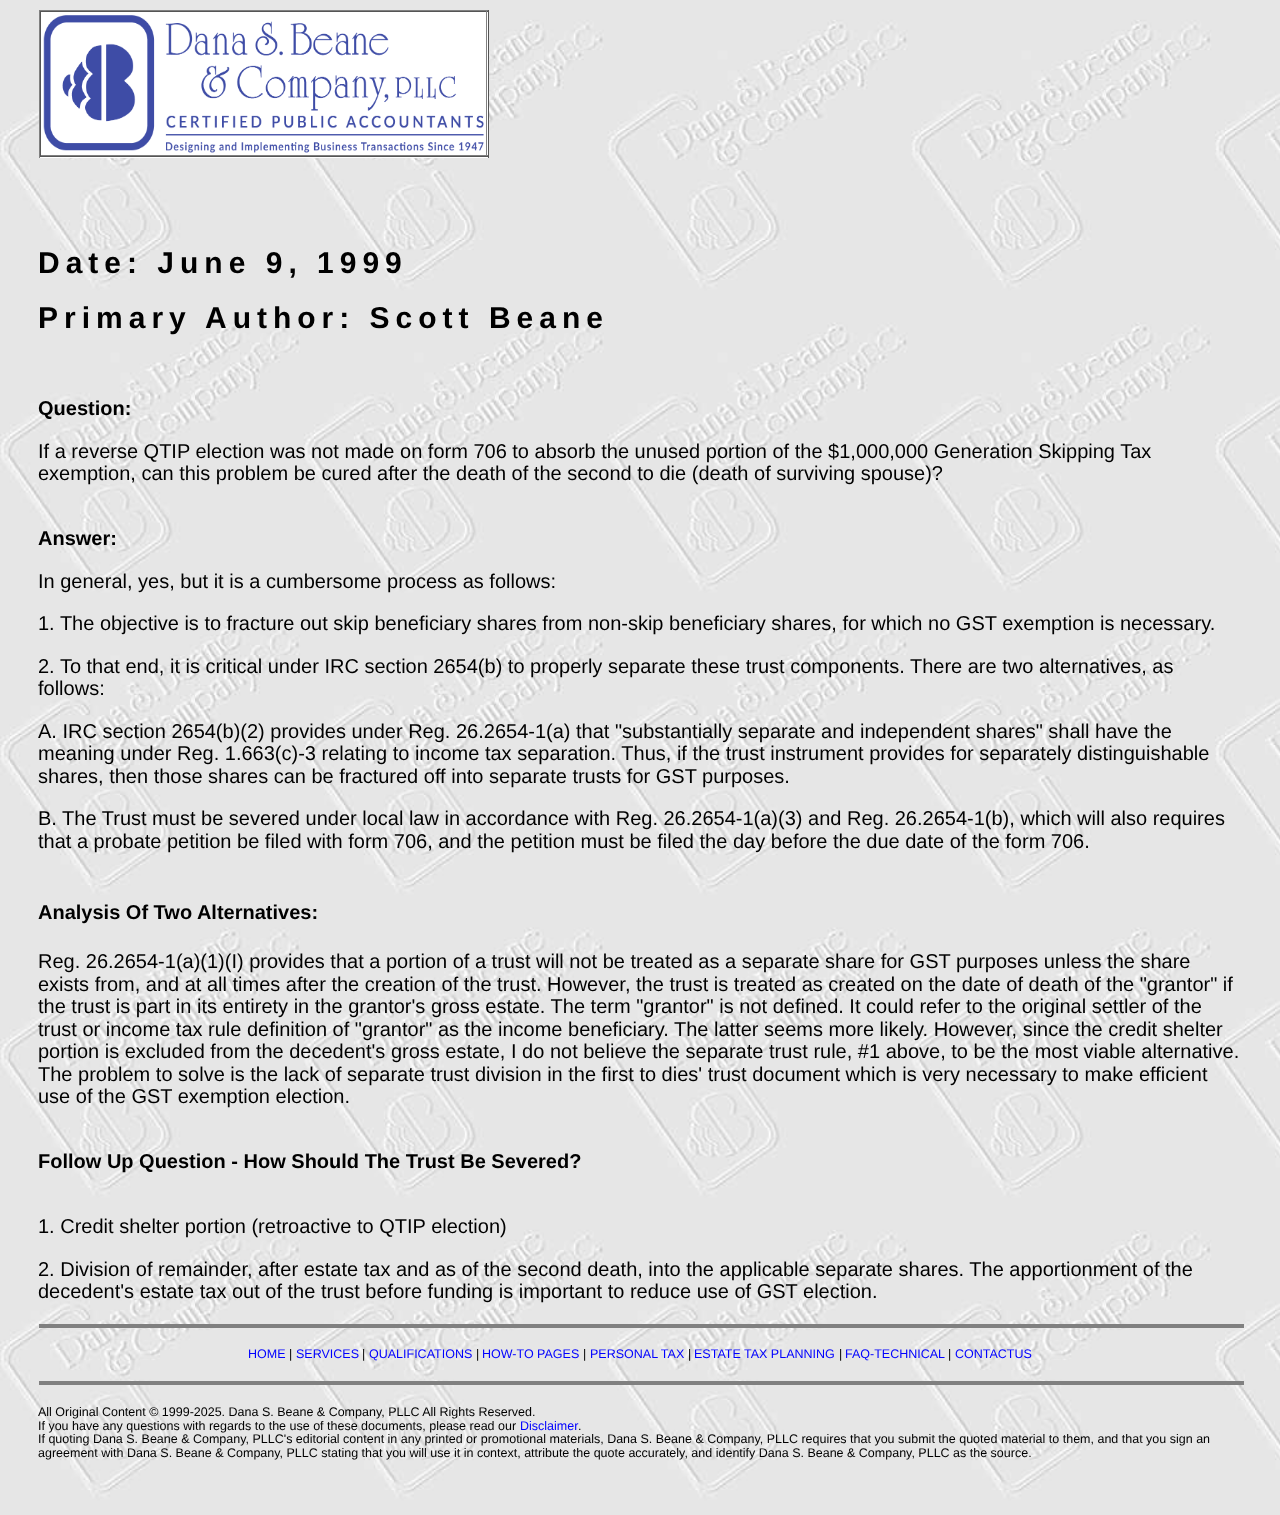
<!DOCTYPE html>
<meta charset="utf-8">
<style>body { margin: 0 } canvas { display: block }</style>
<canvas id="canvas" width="1280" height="1515"></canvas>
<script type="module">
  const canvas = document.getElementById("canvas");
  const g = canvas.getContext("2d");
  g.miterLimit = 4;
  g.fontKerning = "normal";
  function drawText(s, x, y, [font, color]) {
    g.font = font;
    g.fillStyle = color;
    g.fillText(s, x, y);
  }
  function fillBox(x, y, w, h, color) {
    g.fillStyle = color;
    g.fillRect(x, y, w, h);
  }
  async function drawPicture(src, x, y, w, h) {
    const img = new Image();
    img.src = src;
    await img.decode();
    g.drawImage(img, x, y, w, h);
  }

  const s1 = ["bold 30px Liberation Sans", "#000000"];
  const s2 = ["bold 20px Liberation Sans", "#000000"];
  const s3 = ["20px Liberation Sans", "#000000"];
  const s4 = ["12.5px Liberation Sans", "#0000FF"];
  const s5 = ["12.5px Liberation Sans", "#000000"];

  fillBox(0, 0, 1280, 1515, "#FFFFFF");
  await drawPicture("pic1.png", 0, 0, 1280, 1515);
  fillBox(40, 12, 448, 146, "#FFFFFF");
  fillBox(39, 10, 450, 1, "#808080");
  fillBox(488, 10, 1, 148, "#555555");
  fillBox(39, 156, 450, 1, "#555555");
  fillBox(39, 10, 1, 148, "#808080");
  fillBox(40, 11, 448, 1, "#555555");
  fillBox(486, 11, 1, 145, "#808080");
  fillBox(40, 155, 448, 1, "#808080");
  fillBox(40, 11, 1, 145, "#555555");
  await drawPicture("pic2.png", 43, 15, 441, 138);
  g.letterSpacing = "6px";
  drawText("Date: June 9, 1999", 38, 273, s1);
  drawText("Primary Author: Scott Beane", 38, 328, s1);
  g.letterSpacing = "0px";
  drawText("Question:", 38, 415, s2);
  drawText("If a reverse QTIP election was not made on form 706 to absorb the unused portion of the $1,000,000 Generation Skipping Tax", 38, 458, s3);
  drawText("exemption, can this problem be cured after the death of the second to die (death of surviving spouse)?", 38, 480, s3);
  drawText("Answer:", 38, 545, s2);
  drawText("In general, yes, but it is a cumbersome process as follows:", 38, 588, s3);
  drawText("1. The objective is to fracture out skip beneficiary shares from non-skip beneficiary shares, for which no GST exemption is necessary.", 38, 630, s3);
  drawText("2. To that end, it is critical under IRC section 2654(b) to properly separate these trust components. There are two alternatives, as", 38, 673, s3);
  drawText("follows:", 38, 695, s3);
  drawText("A. IRC section 2654(b)(2) provides under Reg. 26.2654-1(a) that \"substantially separate and independent shares\" shall have the", 38, 738, s3);
  drawText("meaning under Reg. 1.663(c)-3 relating to income tax separation. Thus, if the trust instrument provides for separately distinguishable", 38, 760, s3);
  drawText("shares, then those shares can be fractured off into separate trusts for GST purposes.", 38, 783, s3);
  drawText("B. The Trust must be severed under local law in accordance with Reg. 26.2654-1(a)(3) and Reg. 26.2654-1(b), which will also requires", 38, 825, s3);
  drawText("that a probate petition be filed with form 706, and the petition must be filed the day before the due date of the form 706.", 38, 848, s3);
  drawText("Analysis Of Two Alternatives:", 38, 919, s2);
  drawText("Reg. 26.2654-1(a)(1)(I) provides that a portion of a trust will not be treated as a separate share for GST purposes unless the share", 38, 968, s3);
  drawText("exists from, and at all times after the creation of the trust. However, the trust is treated as created on the date of death of the \"grantor\" if", 38, 991, s3);
  drawText("the trust is part in its entirety in the grantor's gross estate. The term \"grantor\" is not defined. It could refer to the original settler of the", 38, 1013, s3);
  drawText("trust or income tax rule definition of \"grantor\" as the income beneficiary. The latter seems more likely. However, since the credit shelter", 38, 1036, s3);
  drawText("portion is excluded from the decedent's gross estate, I do not believe the separate trust rule, #1 above, to be the most viable alternative.", 38, 1058, s3);
  drawText("The problem to solve is the lack of separate trust division in the first to dies' trust document which is very necessary to make efficient", 38, 1081, s3);
  drawText("use of the GST exemption election.", 38, 1103, s3);
  drawText("Follow Up Question - How Should The Trust Be Severed?", 38, 1168, s2);
  drawText("1. Credit shelter portion (retroactive to QTIP election)", 38, 1233, s3);
  drawText("2. Division of remainder, after estate tax and as of the second death, into the applicable separate shares. The apportionment of the", 38, 1276, s3);
  drawText("decedent's estate tax out of the trust before funding is important to reduce use of GST election.", 38, 1298, s3);
  fillBox(39, 1324, 1205, 4, "#808080");
  drawText("HOME", 248, 1358, s4);
  drawText("|", 289, 1358, s5);
  drawText("SERVICES", 296, 1358, s4);
  drawText("|", 362, 1358, s5);
  drawText("QUALIFICATIONS", 369, 1358, s4);
  drawText("|", 476, 1358, s5);
  drawText("HOW-TO PAGES", 482, 1358, s4);
  drawText("|", 583, 1358, s5);
  drawText("PERSONAL TAX", 590, 1358, s4);
  drawText("|", 688, 1358, s5);
  drawText("ESTATE TAX PLANNING", 694, 1358, s4);
  drawText("|", 839, 1358, s5);
  drawText("FAQ-TECHNICAL", 845, 1358, s4);
  drawText("|", 948, 1358, s5);
  drawText("CONTACTUS", 955, 1358, s4);
  fillBox(39, 1381, 1205, 4, "#808080");
  drawText("All Original Content © 1999-2025. Dana S. Beane & Company, PLLC All Rights Reserved.", 38, 1416, s5);
  drawText("If you have any questions with regards to the use of these documents, please read our", 38, 1430, s5);
  drawText("Disclaimer", 520, 1430, s4);
  drawText(".", 578, 1430, s5);
  drawText("If quoting Dana S. Beane & Company, PLLC's editorial content in any printed or promotional materials, Dana S. Beane & Company, PLLC requires that you submit the quoted material to them, and that you sign an", 38, 1443, s5);
  drawText("agreement with Dana S. Beane & Company, PLLC stating that you will use it in context, attribute the quote accurately, and identify Dana S. Beane & Company, PLLC as the source.", 38, 1457, s5);
</script>
